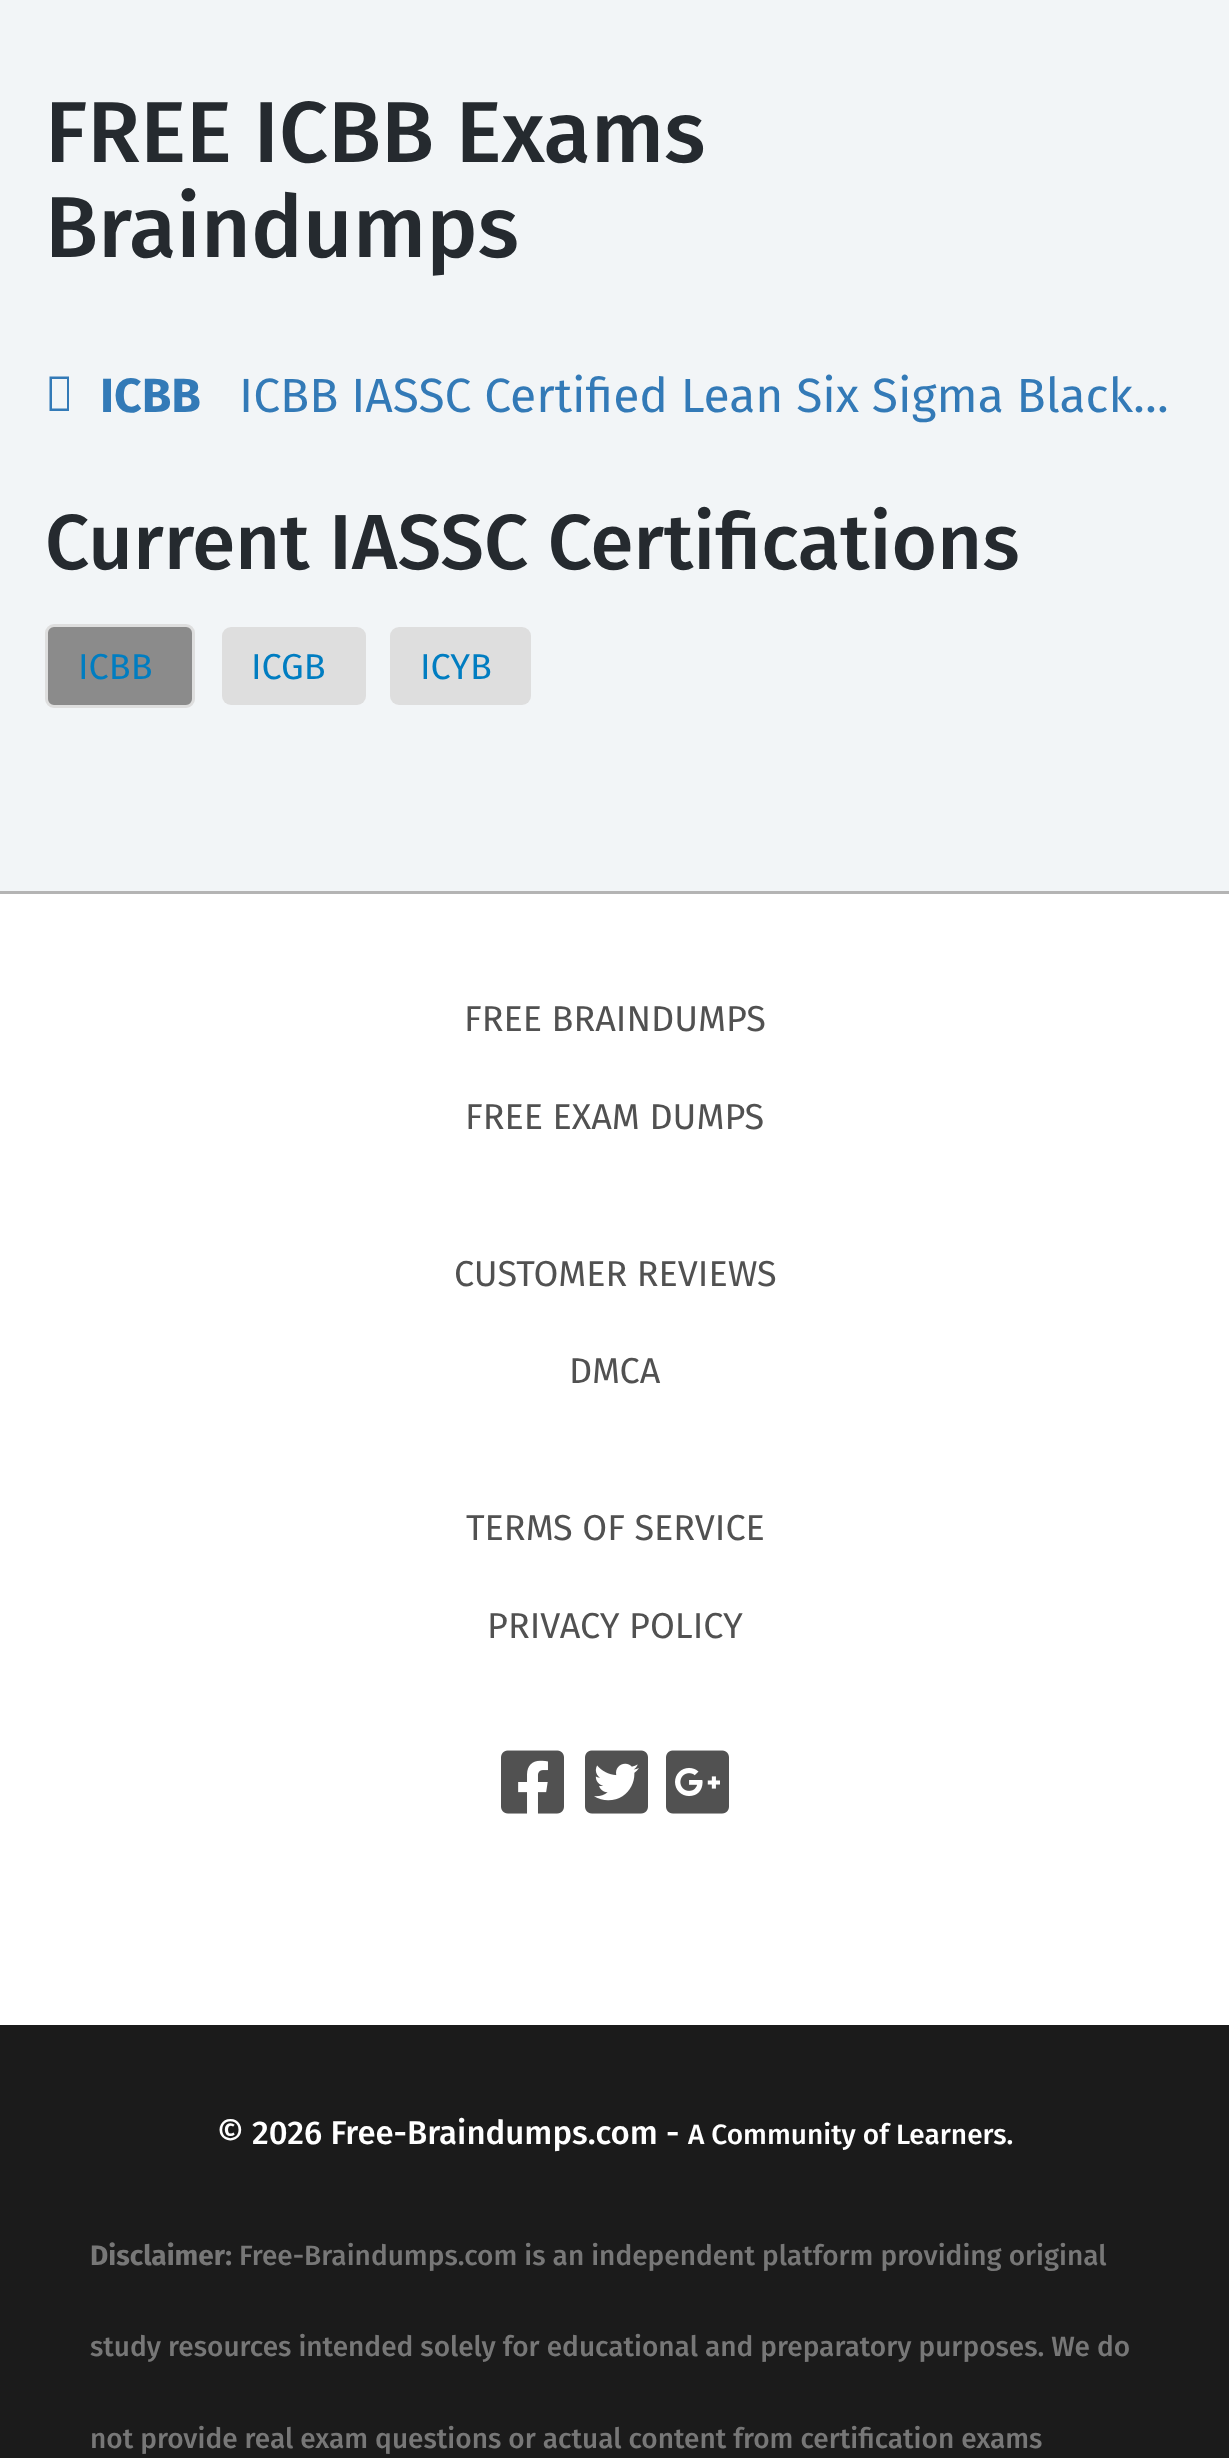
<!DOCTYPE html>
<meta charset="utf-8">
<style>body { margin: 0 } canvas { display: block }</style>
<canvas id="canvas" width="1229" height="2458"></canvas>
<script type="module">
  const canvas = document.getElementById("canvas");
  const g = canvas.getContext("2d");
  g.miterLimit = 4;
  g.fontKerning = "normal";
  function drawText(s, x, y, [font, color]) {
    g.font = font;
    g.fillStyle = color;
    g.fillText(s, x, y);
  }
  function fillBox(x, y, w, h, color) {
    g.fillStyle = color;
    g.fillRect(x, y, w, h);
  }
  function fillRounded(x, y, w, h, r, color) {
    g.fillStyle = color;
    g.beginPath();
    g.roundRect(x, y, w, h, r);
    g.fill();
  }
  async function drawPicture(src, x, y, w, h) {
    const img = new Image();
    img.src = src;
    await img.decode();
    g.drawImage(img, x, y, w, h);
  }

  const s1 = ["500 86.5px Fira Sans", "#252A2F"];
  const s2 = ["bold 48px Fira Sans", "#337AB7"];
  const s3 = ["48px Fira Sans", "#337AB7"];
  const s4 = ["500 78px Fira Sans", "#252A2F"];
  const s5 = ["36px Fira Sans", "#007DC1"];
  const s6 = ["36px Fira Sans", "#515151"];
  const s7 = ["500 33px Fira Sans", "#FFFFFF"];
  const s8 = ["500 28.05px Fira Sans", "#FFFFFF"];
  const s9 = ["bold 28.05px Fira Sans", "#777777"];
  const s10 = ["500 28.05px Fira Sans", "#777777"];

  fillBox(0, 0, 1229, 2458, "#F2F5F7");
  drawText("FREE ICBB Exams", 45, 162, s1);
  drawText("Braindumps", 45, 257, s1);
  g.fillStyle = "#337AB7";
  g.beginPath();
  g.moveTo(49.5, 411);
  g.lineTo(49.5, 376.5);
  g.lineTo(69, 376.5);
  g.lineTo(69, 411);
  g.closePath();
  g.moveTo(52, 408.5);
  g.lineTo(67, 408.5);
  g.lineTo(67, 379);
  g.lineTo(52, 379);
  g.closePath();
  g.fill();
  drawText("ICBB", 100, 412, s2);
  drawText("ICBB IASSC Certified Lean Six Sigma Black…", 239, 412, s3);
  drawText("Current IASSC Certifications", 45, 569, s4);
  g.fillStyle = "#8B8B8B";
  g.beginPath();
  g.roundRect(46.5, 625.5, 147, 81, 7.5);
  g.fill();
  g.strokeStyle = "#DEDEDE";
  g.lineWidth = 3;
  g.stroke();
  drawText("ICBB", 78, 679, s5);
  fillRounded(222, 627, 144, 78, 9, "#DEDEDE");
  drawText("ICGB", 251, 679, s5);
  fillRounded(390, 627, 141, 78, 9, "#DEDEDE");
  drawText("ICYB", 420, 679, s5);
  fillBox(0, 894, 1229, 1131, "#FFFFFF");
  fillBox(0, 891, 1229, 3, "#B4B4B4");
  drawText("FREE BRAINDUMPS", 464, 1031, s6);
  drawText("FREE EXAM DUMPS", 465, 1129, s6);
  drawText("CUSTOMER REVIEWS", 454, 1286, s6);
  drawText("DMCA", 569, 1383, s6);
  drawText("TERMS OF SERVICE", 466, 1540, s6);
  drawText("PRIVACY POLICY", 487, 1638, s6);
  await drawPicture("pic1.png", 501, 1750, 63, 64);
  await drawPicture("pic2.png", 585, 1750, 63, 64);
  await drawPicture("pic3.png", 666, 1750, 63, 64);
  fillBox(0, 2025, 1229, 433, "#1B1B1B");
  drawText("© 2026 Free-Braindumps.com -", 217, 2144, s7);
  drawText("A Community of Learners.", 688, 2144, s8);
  drawText("Disclaimer:", 90, 2265, s9);
  drawText("Free-Braindumps.com is an independent platform providing original", 239, 2265, s10);
  drawText("study resources intended solely for educational and preparatory purposes. We do", 90, 2356, s10);
  drawText("not provide real exam questions or actual content from certification exams", 90, 2448, s10);
</script>
